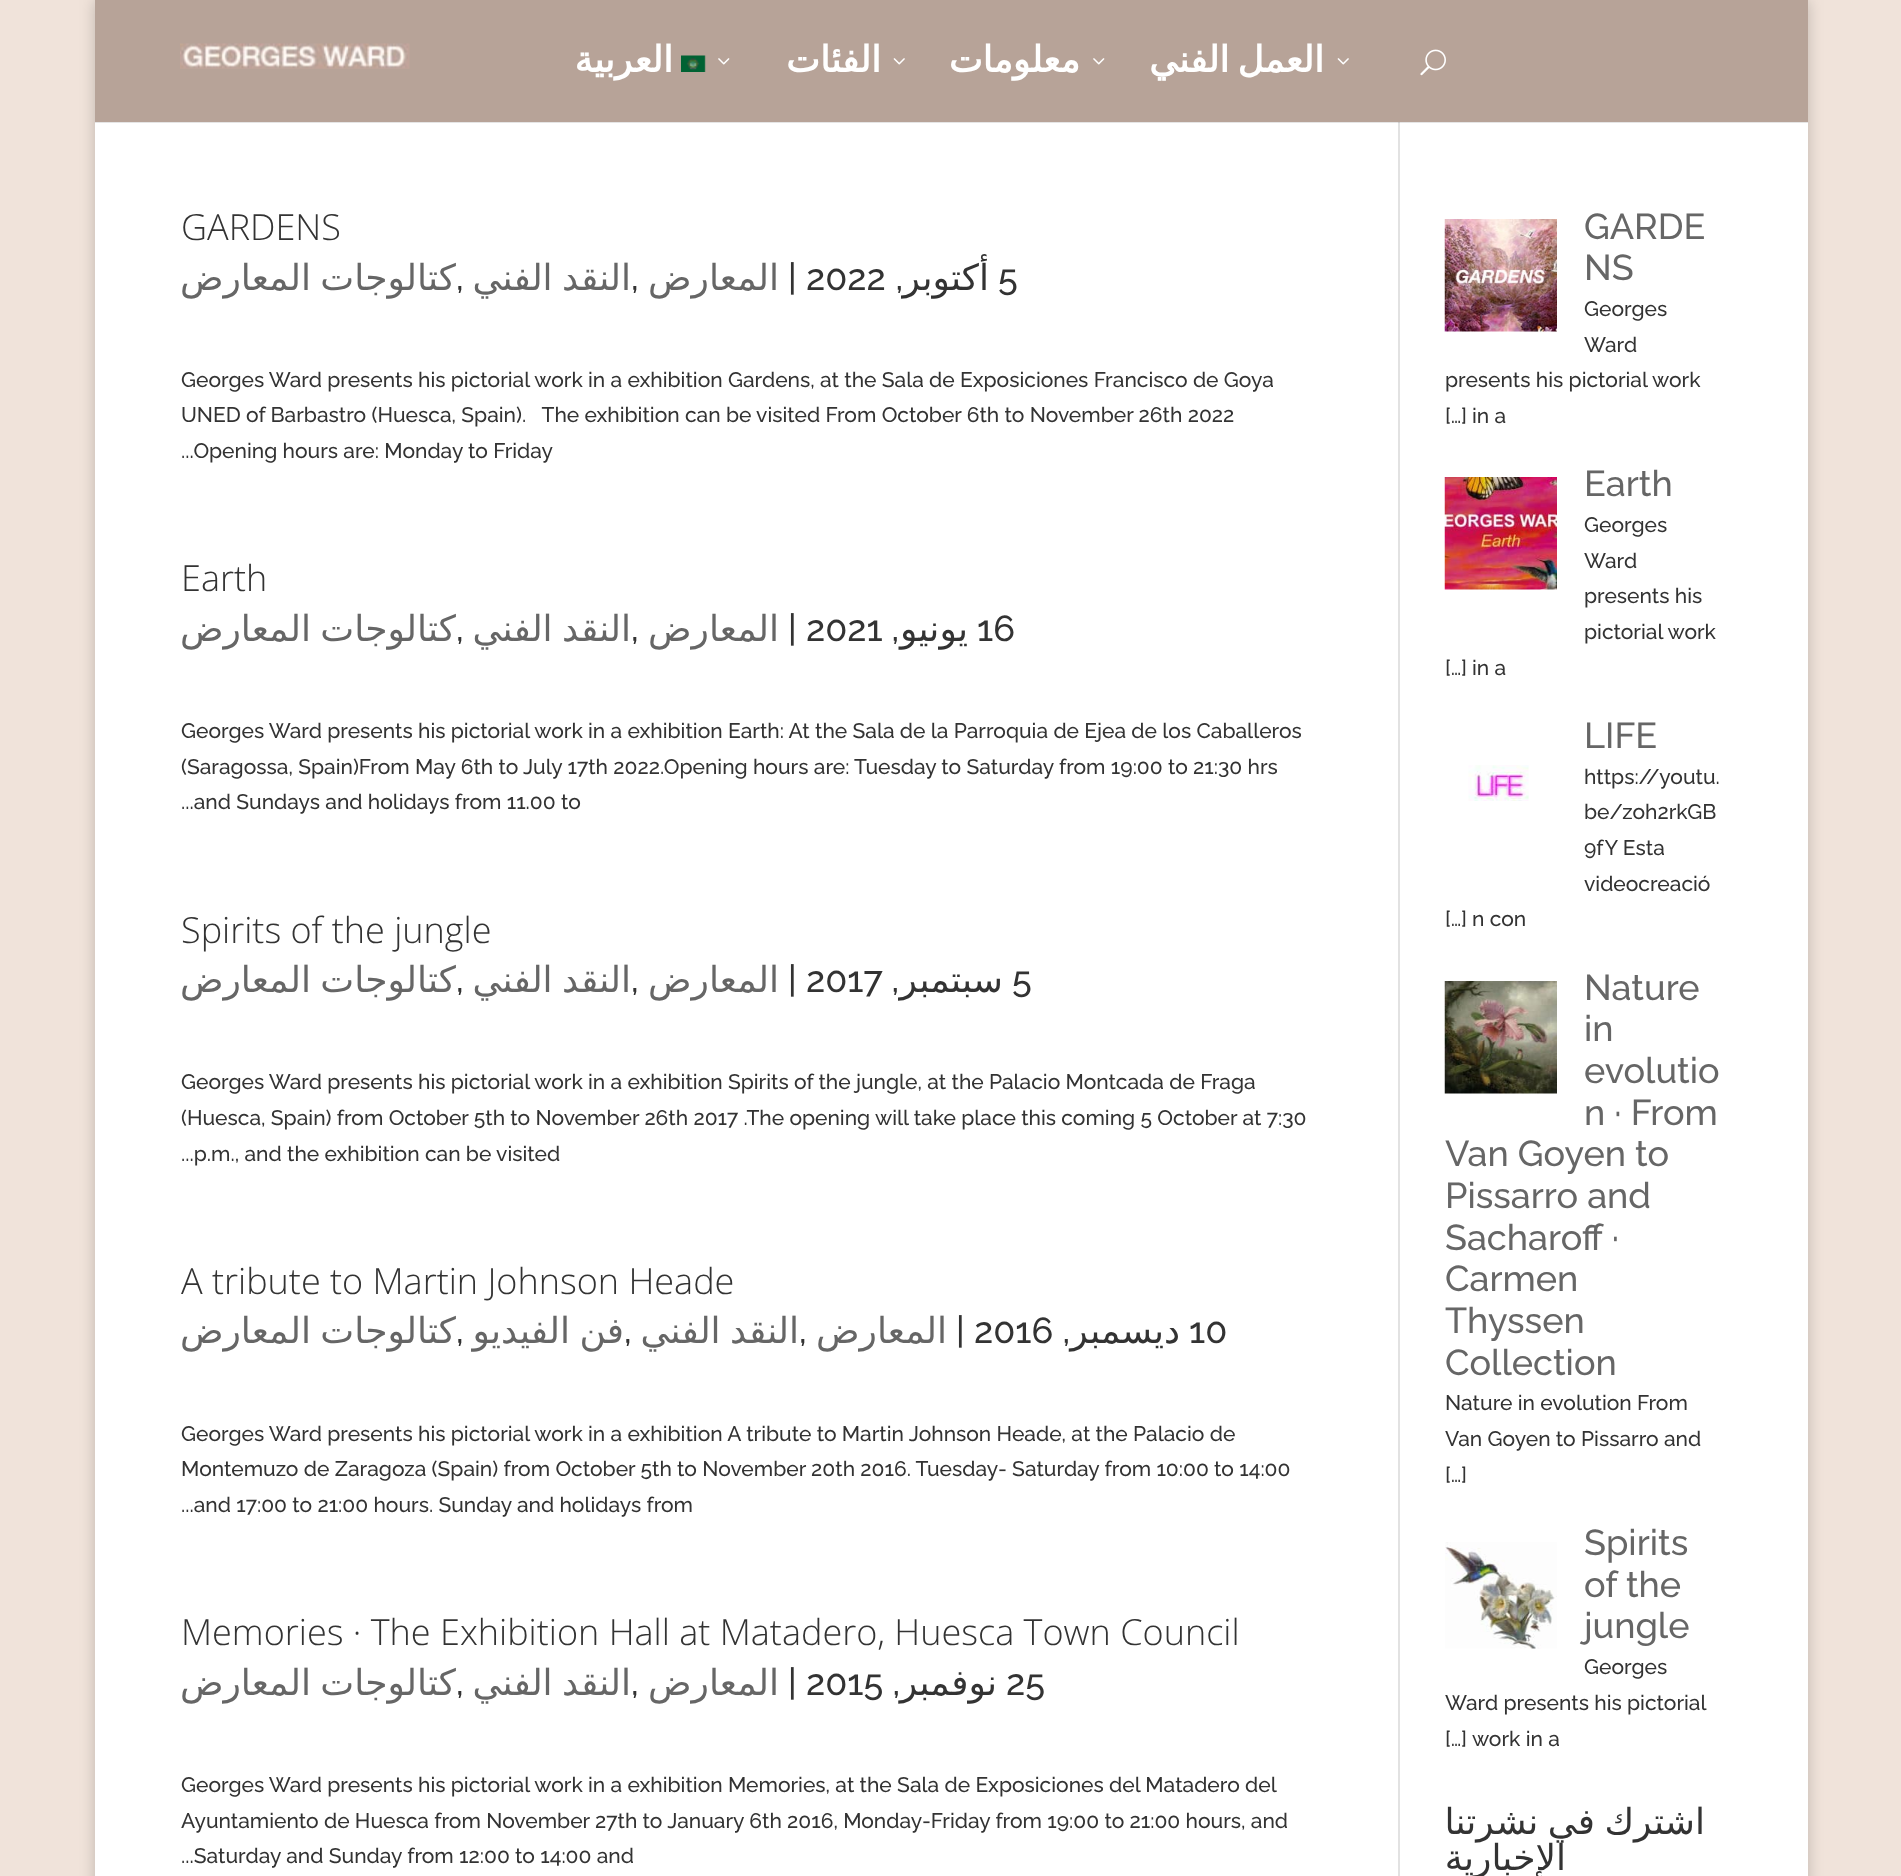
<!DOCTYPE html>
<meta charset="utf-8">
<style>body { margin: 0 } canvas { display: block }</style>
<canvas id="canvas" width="1901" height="1876"></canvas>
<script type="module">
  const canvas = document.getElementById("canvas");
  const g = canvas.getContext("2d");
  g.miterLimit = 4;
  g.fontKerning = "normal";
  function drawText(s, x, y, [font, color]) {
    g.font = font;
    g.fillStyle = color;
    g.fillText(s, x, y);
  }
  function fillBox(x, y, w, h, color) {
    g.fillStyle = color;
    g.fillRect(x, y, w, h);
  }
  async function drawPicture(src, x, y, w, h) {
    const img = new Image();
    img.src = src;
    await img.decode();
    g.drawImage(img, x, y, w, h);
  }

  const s1 = ["bold 36px DejaVu Sans", "#FFFFFF"];
  const s2 = ["300 36px Open Sans", "#333333"];
  const s3 = ["500 36px Raleway", "#333333"];
  const s4 = ["36px DejaVu Sans", "#666666"];
  const s5 = ["36px DejaVu Sans", "#333333"];
  const s6 = ["500 21px Raleway", "#333333"];
  const s7 = ["500 36px Raleway", "#666666"];

  fillBox(0, 0, 1901, 1876, "#F0E3DA");
  g.fillStyle = "rgba(0, 0, 0, 0.2)";
  g.filter = "blur(7.5px)";
  g.beginPath();
  g.rect(95, 0, 1713, 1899);
  g.fill();
  g.filter = "none";
  fillBox(95, 122, 1713, 1754, "#FFFFFF");
  fillBox(1398, 122, 2, 1754, "#E2E2E2");
  g.fillStyle = "rgba(0, 0, 0, 0.1)";
  g.beginPath();
  g.moveTo(95, 122);
  g.lineTo(95, 123);
  g.lineTo(1808, 123);
  g.lineTo(1808, 2);
  g.lineTo(1808, 122);
  g.closePath();
  g.fill();
  fillBox(95, 0, 1713, 122, "#B7A398");
  await drawPicture("pic1.png", 180, 43, 230, 26);
  g.direction = "rtl";
  drawText("العربية", 673, 72, s1);
  await drawPicture("pic2.png", 681, 55, 25, 17);
  await drawPicture("pic3.png", 718, 58, 12, 7);
  drawText("الفئات", 881, 72, s1);
  await drawPicture("pic4.png", 893, 58, 12, 7);
  drawText("معلومات", 1080, 72, s1);
  await drawPicture("pic3.png", 1093, 58, 12, 7);
  g.wordSpacing = "-3px";
  drawText("العمل الفني", 1324, 72, s1);
  await drawPicture("pic4.png", 1337, 58, 12, 7);
  await drawPicture("pic5.png", 1420, 49, 26, 27);
  g.wordSpacing = "0px";
  g.direction = "ltr";
  drawText("GARDENS", 181, 240, s2);
  drawText(",", 456, 290, s3);
  g.wordSpacing = "-2px";
  g.direction = "rtl";
  drawText("كتالوجات المعارض", 456, 290, s4);
  drawText("النقد الفني", 631, 290, s4);
  g.wordSpacing = "0px";
  g.direction = "ltr";
  drawText(",", 631, 290, s3);
  g.direction = "rtl";
  drawText("المعارض", 779, 290, s4);
  g.direction = "ltr";
  drawText("|", 788, 290, s3);
  drawText("2022", 806, 290, s3);
  g.direction = "rtl";
  drawText(",", 903, 290, s3);
  drawText("أكتوبر", 989, 290, s5);
  g.direction = "ltr";
  drawText("5", 998, 290, s3);
  drawText("Georges Ward presents his pictorial work in a exhibition Gardens, at the Sala de Exposiciones Francisco de Goya", 181, 387, s6);
  drawText("UNED of Barbastro (Huesca, Spain).   The exhibition can be visited From October 6th to November 26th 2022", 181, 422, s6);
  drawText("...Opening hours are: Monday to Friday", 181, 458, s6);
  drawText("Earth", 181, 591, s2);
  drawText(",", 456, 641, s3);
  g.wordSpacing = "-2px";
  g.direction = "rtl";
  drawText("كتالوجات المعارض", 456, 641, s4);
  drawText("النقد الفني", 631, 641, s4);
  g.wordSpacing = "0px";
  g.direction = "ltr";
  drawText(",", 631, 641, s3);
  g.direction = "rtl";
  drawText("المعارض", 779, 641, s4);
  g.direction = "ltr";
  drawText("|", 788, 641, s3);
  drawText("2021", 806, 641, s3);
  g.direction = "rtl";
  drawText(",", 899, 641, s3);
  drawText("يونيو", 968, 641, s5);
  g.direction = "ltr";
  drawText("16", 977, 641, s3);
  drawText("Georges Ward presents his pictorial work in a exhibition Earth: At the Sala de la Parroquia de Ejea de los Caballeros", 181, 738, s6);
  drawText("(Saragossa, Spain)From May 6th to July 17th 2022.Opening hours are: Tuesday to Saturday from 19:00 to 21:30 hrs", 181, 774, s6);
  drawText("...and Sundays and holidays from 11.00 to", 181, 809, s6);
  drawText("Spirits of the jungle", 181, 943, s2);
  drawText(",", 456, 992, s3);
  g.wordSpacing = "-2px";
  g.direction = "rtl";
  drawText("كتالوجات المعارض", 456, 992, s4);
  drawText("النقد الفني", 631, 992, s4);
  g.wordSpacing = "0px";
  g.direction = "ltr";
  drawText(",", 631, 992, s3);
  g.direction = "rtl";
  drawText("المعارض", 779, 992, s4);
  g.direction = "ltr";
  drawText("|", 788, 992, s3);
  drawText("2017", 806, 992, s3);
  g.direction = "rtl";
  drawText(",", 899, 992, s3);
  drawText("سبتمبر", 1003, 992, s5);
  g.direction = "ltr";
  drawText("5", 1012, 992, s3);
  drawText("Georges Ward presents his pictorial work in a exhibition Spirits of the jungle, at the Palacio Montcada de Fraga", 181, 1089, s6);
  drawText("(Huesca, Spain) from October 5th to November 26th 2017 .The opening will take place this coming 5 October at 7:30", 181, 1125, s6);
  drawText("...p.m., and the exhibition can be visited", 181, 1161, s6);
  drawText("A tribute to Martin Johnson Heade", 181, 1294, s2);
  drawText(",", 456, 1343, s3);
  g.wordSpacing = "-2px";
  g.direction = "rtl";
  drawText("كتالوجات المعارض", 456, 1343, s4);
  drawText("فن الفيديو", 624, 1343, s4);
  g.wordSpacing = "0px";
  g.direction = "ltr";
  drawText(",", 624, 1343, s3);
  g.wordSpacing = "-2px";
  g.direction = "rtl";
  drawText("النقد الفني", 799, 1343, s4);
  g.wordSpacing = "0px";
  g.direction = "ltr";
  drawText(",", 799, 1343, s3);
  g.direction = "rtl";
  drawText("المعارض", 947, 1343, s4);
  g.direction = "ltr";
  drawText("|", 956, 1343, s3);
  drawText("2016", 974, 1343, s3);
  g.direction = "rtl";
  drawText(",", 1070, 1343, s3);
  drawText("ديسمبر", 1180, 1343, s5);
  g.direction = "ltr";
  drawText("10", 1189, 1343, s3);
  drawText("Georges Ward presents his pictorial work in a exhibition A tribute to Martin Johnson Heade, at the Palacio de", 181, 1441, s6);
  drawText("Montemuzo de Zaragoza (Spain) from October 5th to November 20th 2016. Tuesday- Saturday from 10:00 to 14:00", 181, 1476, s6);
  drawText("...and 17:00 to 21:00 hours. Sunday and holidays from", 181, 1512, s6);
  drawText("Memories · The Exhibition Hall at Matadero, Huesca Town Council", 181, 1645, s2);
  drawText(",", 456, 1695, s3);
  g.wordSpacing = "-2px";
  g.direction = "rtl";
  drawText("كتالوجات المعارض", 456, 1695, s4);
  drawText("النقد الفني", 631, 1695, s4);
  g.wordSpacing = "0px";
  g.direction = "ltr";
  drawText(",", 631, 1695, s3);
  g.direction = "rtl";
  drawText("المعارض", 779, 1695, s4);
  g.direction = "ltr";
  drawText("|", 788, 1695, s3);
  drawText("2015", 806, 1695, s3);
  g.direction = "rtl";
  drawText(",", 900, 1695, s3);
  drawText("نوفمبر", 997, 1695, s5);
  g.direction = "ltr";
  drawText("25", 1006, 1695, s3);
  drawText("Georges Ward presents his pictorial work in a exhibition Memories, at the Sala de Exposiciones del Matadero del", 181, 1792, s6);
  drawText("Ayuntamiento de Huesca from November 27th to January 6th 2016, Monday-Friday from 19:00 to 21:00 hours, and", 181, 1828, s6);
  drawText("...Saturday and Sunday from 12:00 to 14:00 and", 181, 1863, s6);
  await drawPicture("pic6.png", 1444, 219, 113, 113);
  drawText("GARDE", 1584, 239, s7);
  drawText("NS", 1584, 280, s7);
  drawText("Georges", 1584, 316, s6);
  drawText("Ward", 1584, 352, s6);
  drawText("presents his pictorial work", 1445, 387, s6);
  drawText("[…]", 1445, 423, s6);
  drawText("in a", 1472, 423, s6);
  await drawPicture("pic7.png", 1444, 477, 113, 113);
  drawText("Earth", 1584, 496, s7);
  drawText("Georges", 1584, 532, s6);
  drawText("Ward", 1584, 568, s6);
  drawText("presents his", 1584, 603, s6);
  drawText("pictorial work", 1584, 639, s6);
  drawText("[…]", 1445, 675, s6);
  drawText("in a", 1472, 675, s6);
  drawText("LIFE", 1584, 748, s7);
  await drawPicture("pic8.png", 1468, 765, 61, 36);
  drawText("https://youtu.", 1584, 784, s6);
  drawText("be/zoh2rkGB", 1584, 819, s6);
  drawText("9fY Esta", 1584, 855, s6);
  drawText("videocreació", 1584, 891, s6);
  drawText("[…]", 1445, 926, s6);
  drawText("n con", 1472, 926, s6);
  await drawPicture("pic9.png", 1444, 981, 113, 113);
  drawText("Nature", 1584, 1000, s7);
  drawText("in", 1584, 1041, s7);
  drawText("evolutio", 1584, 1083, s7);
  drawText("n · From", 1584, 1125, s7);
  drawText("Van Goyen to", 1445, 1166, s7);
  drawText("Pissarro and", 1445, 1208, s7);
  drawText("Sacharoff ·", 1445, 1250, s7);
  drawText("Carmen", 1445, 1291, s7);
  drawText("Thyssen", 1445, 1333, s7);
  drawText("Collection", 1445, 1375, s7);
  drawText("Nature in evolution From", 1445, 1410, s6);
  drawText("Van Goyen to Pissarro and", 1445, 1446, s6);
  drawText("[…]", 1445, 1482, s6);
  await drawPicture("pic10.png", 1445, 1542, 112, 107);
  drawText("Spirits", 1584, 1555, s7);
  drawText("of the", 1584, 1597, s7);
  drawText("jungle", 1584, 1638, s7);
  drawText("Georges", 1584, 1674, s6);
  drawText("Ward presents his pictorial", 1445, 1710, s6);
  drawText("[…]", 1445, 1746, s6);
  drawText("work in a", 1472, 1746, s6);
  g.wordSpacing = "-2px";
  g.direction = "rtl";
  drawText("اشترك في نشرتنا", 1705, 1834, s5);
  g.wordSpacing = "0px";
  drawText("الإخبارية", 1566, 1870, s5);
</script>
